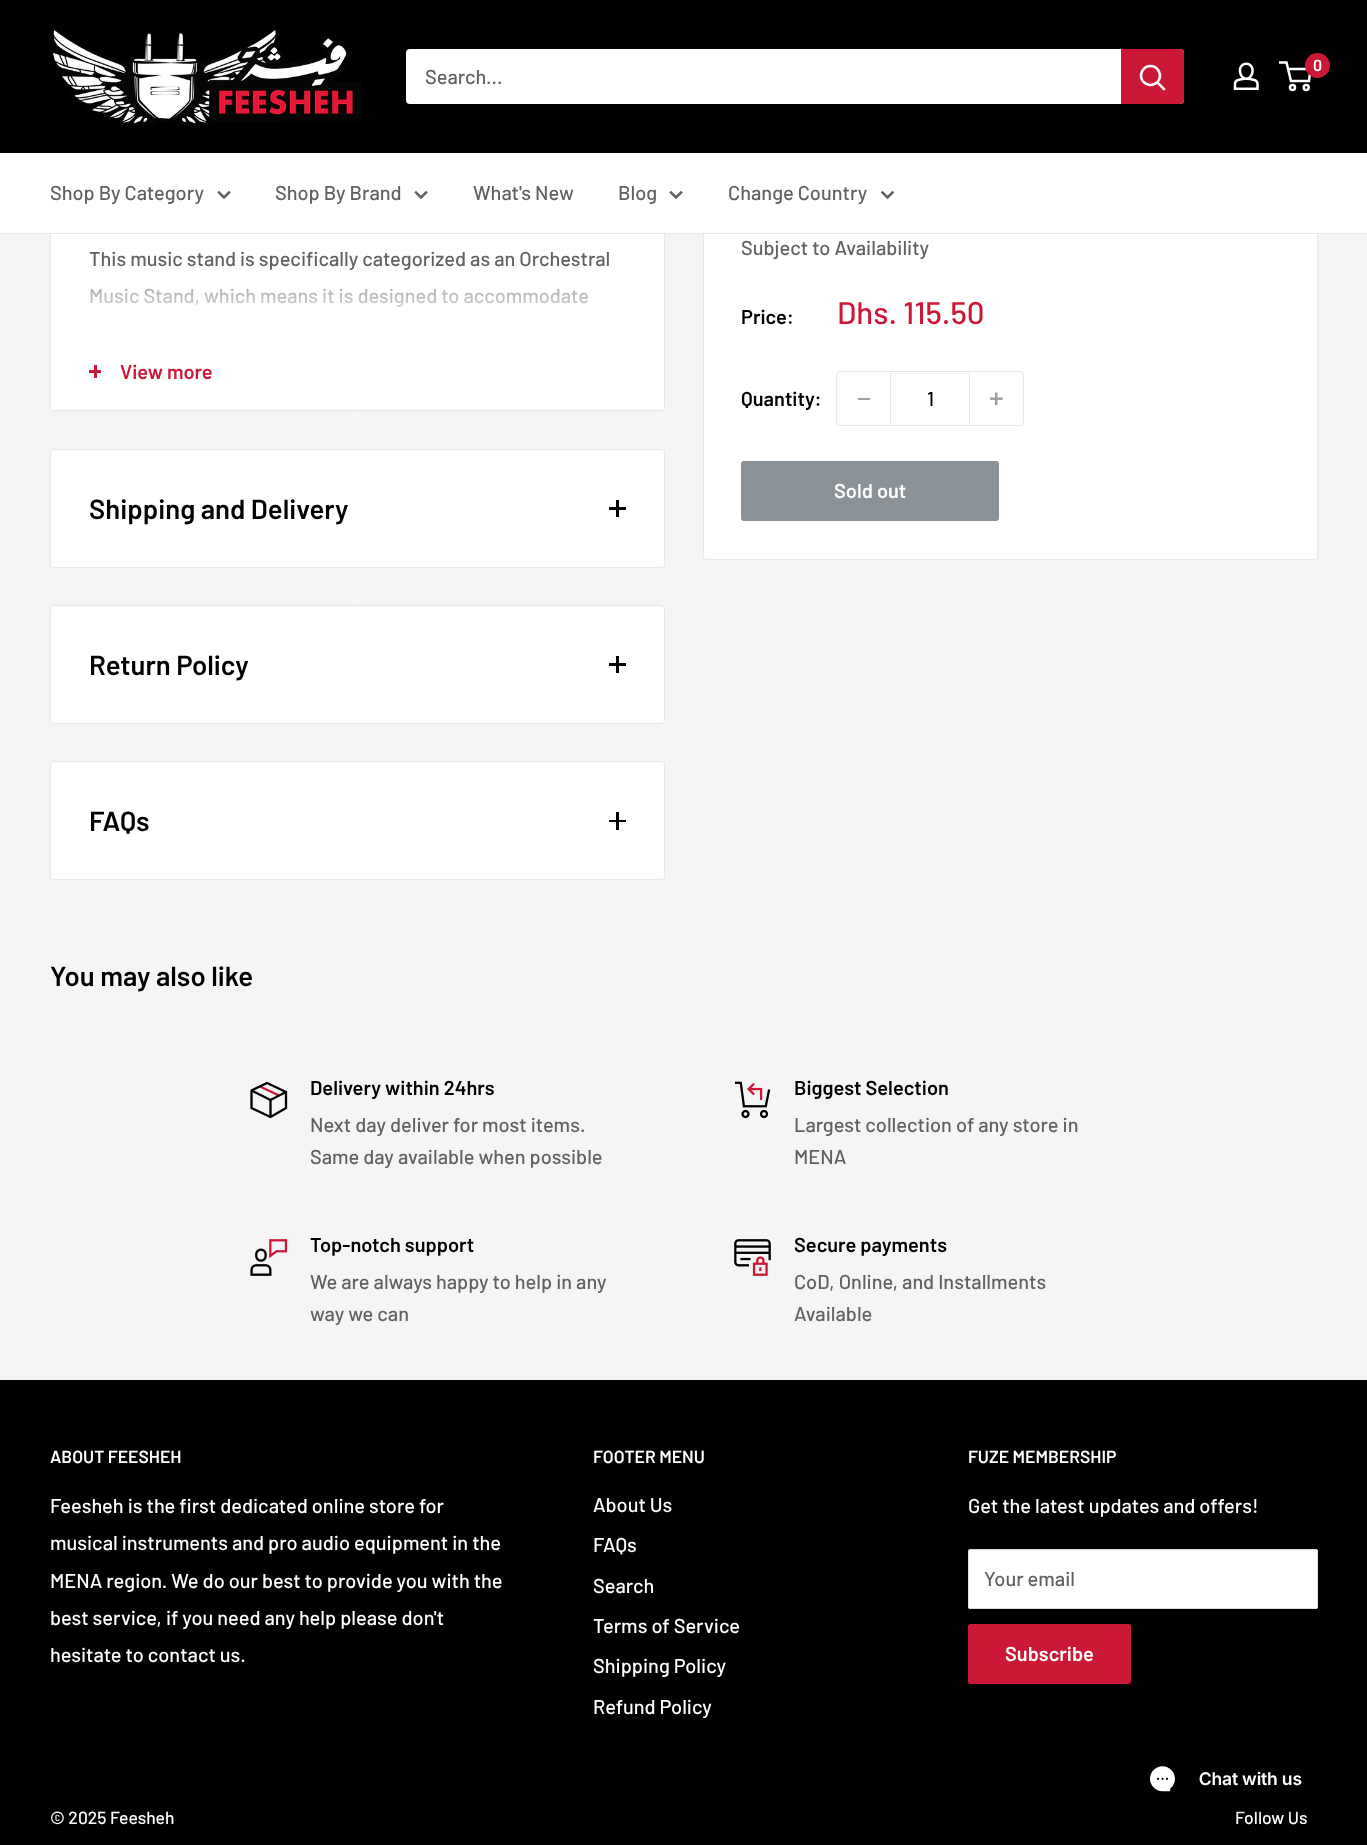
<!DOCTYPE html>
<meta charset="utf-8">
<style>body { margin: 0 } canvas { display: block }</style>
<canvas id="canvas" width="1367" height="1845"></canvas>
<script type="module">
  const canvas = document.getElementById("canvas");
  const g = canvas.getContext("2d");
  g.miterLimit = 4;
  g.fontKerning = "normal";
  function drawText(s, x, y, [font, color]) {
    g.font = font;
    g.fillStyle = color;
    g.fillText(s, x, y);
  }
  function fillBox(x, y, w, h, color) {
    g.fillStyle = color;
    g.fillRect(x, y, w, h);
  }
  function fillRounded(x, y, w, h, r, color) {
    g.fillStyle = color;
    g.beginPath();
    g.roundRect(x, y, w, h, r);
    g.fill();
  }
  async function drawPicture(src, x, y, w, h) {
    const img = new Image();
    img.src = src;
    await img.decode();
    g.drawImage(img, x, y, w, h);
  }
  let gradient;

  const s1 = ["600 16px Barlow", "#FFFFFF"];
  const s2 = ["500 20px Barlow", "#616161"];
  const s3 = ["600 20px Barlow", "#CB1836"];
  const s4 = ["600 20px Barlow", "#000000"];
  const s5 = ["500 31.25px Barlow", "#CB1836"];
  const s6 = ["500 20px Barlow", "#000000"];
  const s7 = ["600 20px Barlow", "#FFFFFF"];
  const s8 = ["600 27.5px Barlow", "#000000"];
  const s9 = ["600 17.5px Barlow", "#FFFFFF"];
  const s10 = ["500 20px Barlow", "#FFFFFF"];
  const s11 = ["500 17.5px Barlow", "#FFFFFF"];

  fillBox(0, 0, 1367, 1845, "#F5F5F5");
  g.fillStyle = "#FFFFFF";
  g.beginPath();
  g.roundRect(50.5, -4.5, 614, 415, 3.5);
  g.fill();
  g.strokeStyle = "#E8E8E8";
  g.stroke();
  g.beginPath();
  g.roundRect(703.5, 0.5, 614, 559, 3.5);
  g.fill();
  g.stroke();
  fillBox(0, 0, 1367, 153, "#000000");
  await drawPicture("pic1.png", 50, 26, 312, 100);
  await drawPicture("pic2.png", 1233, 62, 26, 28);
  g.beginPath();
  g.arc(1292.5, 87.5, 2.5, 0, Math.PI * 2);
  g.strokeStyle = "#FFFFFF";
  g.lineWidth = 2.5;
  g.stroke();
  g.beginPath();
  g.arc(1306.2, 87.5, 2.5, 0, Math.PI * 2);
  g.stroke();
  g.beginPath();
  g.moveTo(1288, 69);
  g.lineTo(1310.5, 69);
  g.lineTo(1309, 81);
  g.lineTo(1291, 81);
  g.lineTo(1286.5, 62.5);
  g.lineTo(1279, 62.5);
  g.stroke();
  g.fillStyle = "#CB1836";
  g.beginPath();
  g.arc(1317.5, 65.5, 12.5, 0, Math.PI * 2);
  g.fill();
  drawText("0", 1313, 71, s1);
  fillRounded(406, 49, 778, 55, 4, "#FFFFFF");
  drawText("Search...", 425, 84, s2);
  g.fillStyle = "#CB1836";
  g.beginPath();
  g.roundRect(1121, 49, 63, 55, [0, 4, 4, 0]);
  g.fill();
  g.beginPath();
  g.moveTo(1164, 89);
  g.lineTo(1157.5, 82.5);
  g.lineCap = "square";
  g.stroke();
  g.beginPath();
  g.arc(1150.5, 75.5, 9.5, 0, Math.PI * 2);
  g.stroke();
  fillBox(0, 153, 1367, 80, "#FFFFFF");
  fillBox(0, 233, 1367, 1, "#E8E8E8");
  drawText("Shop By Category", 50, 200, s2);
  g.beginPath();
  g.moveTo(229, 192.5);
  g.lineTo(224, 197.5);
  g.lineTo(219, 192.5);
  g.strokeStyle = "#616161";
  g.stroke();
  drawText("Shop By Brand", 275, 200, s2);
  g.beginPath();
  g.moveTo(426, 192.5);
  g.lineTo(421, 197.5);
  g.lineTo(416, 192.5);
  g.stroke();
  drawText("What's New", 473, 200, s2);
  drawText("Blog", 618, 200, s2);
  g.beginPath();
  g.moveTo(681, 192.5);
  g.lineTo(676, 197.5);
  g.lineTo(671, 192.5);
  g.stroke();
  drawText("Change Country", 728, 200, s2);
  g.beginPath();
  g.moveTo(892.5, 192.5);
  g.lineTo(887.5, 197.5);
  g.lineTo(882.5, 192.5);
  g.stroke();
  drawText("This music stand is specifically categorized as an Orchestral", 89, 266, s2);
  drawText("Music Stand, which means it is designed to accommodate", 89, 303, s2);
  fillBox(51, 408, 613, 2, "#FFFFFF");
  gradient = g.createLinearGradient(358, 270, 358, 333);
  gradient.addColorStop(0, "rgba(255, 255, 255, 0)");
  gradient.addColorStop(0.15, "rgba(255, 255, 255, 0.4)");
  gradient.addColorStop(1, "#FFFFFF");
  g.fillStyle = gradient;
  g.fillRect(90, 288, 498, 19);
  fillBox(94, 365, 3, 13, "#CB1836");
  fillBox(89, 370, 12, 3, "#CB1836");
  drawText("View more", 120, 379, s3);
  drawText("Subject to Availability", 741, 255, s2);
  drawText("Price:", 741, 324, s4);
  drawText("Dhs. 115.50", 837, 324, s5);
  drawText("Quantity:", 741, 406, s4);
  g.beginPath();
  g.roundRect(836.5, 371.5, 187, 54, 3.5);
  g.strokeStyle = "#E8E8E8";
  g.lineWidth = 1;
  g.stroke();
  fillBox(858, 398, 12, 2, "#A0A0A0");
  fillBox(891, 373, 78, 1, "#F6F6F6");
  fillBox(969, 373, 1, 52, "#E8E8E8");
  fillBox(890, 373, 1, 52, "#E8E8E8");
  drawText("1", 927, 406, s6);
  await drawPicture("pic3.png", 990, 392, 13, 13);
  g.fillStyle = "#8A9297";
  g.beginPath();
  g.roundRect(741.5, 461.5, 257, 59, 2);
  g.fill();
  g.strokeStyle = "#8A9297";
  g.stroke();
  drawText("Sold out", 834, 498, s7);
  g.beginPath();
  g.roundRect(50.5, 449.5, 614, 118, 3.5);
  g.fill();
  g.strokeStyle = "#E8E8E8";
  g.stroke();
  drawText("Shipping and Delivery", 89, 519, s8);
  fillBox(616, 500, 3, 17, "#000000");
  fillBox(609, 507, 17, 3, "#000000");
  g.fillStyle = "#FFFFFF";
  g.beginPath();
  g.roundRect(50.5, 605.5, 614, 118, 3.5);
  g.fill();
  g.stroke();
  drawText("Return Policy", 89, 675, s8);
  fillBox(616, 656, 3, 17, "#000000");
  fillBox(609, 663, 17, 3, "#000000");
  g.fillStyle = "#FFFFFF";
  g.beginPath();
  g.roundRect(50.5, 761.5, 614, 118, 3.5);
  g.fill();
  g.stroke();
  drawText("FAQs", 89, 831, s8);
  fillBox(616, 812, 3, 18, "#000000");
  fillBox(609, 820, 17, 2, "#000000");
  drawText("You may also like", 50, 986, s8);
  g.beginPath();
  g.moveTo(260, 1086.5);
  g.lineTo(279, 1095.5);
  g.strokeStyle = "#CB1836";
  g.lineWidth = 2.3;
  g.lineCap = "butt";
  g.stroke();
  g.beginPath();
  g.moveTo(286, 1092);
  g.lineTo(270.5, 1100);
  g.lineTo(251.5, 1090.5);
  g.moveTo(270.5, 1100);
  g.lineTo(270.5, 1117);
  g.strokeStyle = "#000000";
  g.stroke();
  g.beginPath();
  g.moveTo(286, 1092);
  g.lineTo(286, 1108);
  g.lineTo(270.5, 1117);
  g.lineTo(251.5, 1108);
  g.lineTo(251.5, 1090.5);
  g.lineTo(267, 1083);
  g.closePath();
  g.lineCap = "square";
  g.stroke();
  drawText("Delivery within 24hrs", 310, 1095, s4);
  drawText("Next day deliver for most items.", 310, 1132, s2);
  drawText("Same day available when possible", 310, 1164, s2);
  await drawPicture("pic4.png", 734, 1081, 37, 38);
  drawText("Biggest Selection", 794, 1095, s4);
  drawText("Largest collection of any store in", 794, 1132, s2);
  drawText("MENA", 794, 1164, s2);
  await drawPicture("pic5.png", 250, 1239, 38, 37);
  drawText("Top-notch support", 310, 1252, s4);
  drawText("We are always happy to help in any", 310, 1289, s2);
  drawText("way we can", 310, 1321, s2);
  await drawPicture("pic6.png", 734, 1239, 37, 37);
  drawText("Secure payments", 794, 1252, s4);
  drawText("CoD, Online, and Installments", 794, 1289, s2);
  drawText("Available", 794, 1321, s2);
  fillBox(0, 1380, 1367, 465, "#000000");
  drawText("ABOUT FEESHEH", 50, 1463, s9);
  drawText("Feesheh is the first dedicated online store for", 50, 1513, s10);
  drawText("musical instruments and pro audio equipment in the", 50, 1550, s10);
  drawText("MENA region. We do our best to provide you with the", 50, 1588, s10);
  drawText("best service, if you need any help please don't", 50, 1625, s10);
  drawText("hesitate to contact us.", 50, 1662, s10);
  drawText("FOOTER MENU", 593, 1463, s9);
  drawText("About Us", 593, 1512, s10);
  drawText("FAQs", 593, 1552, s10);
  drawText("Search", 593, 1593, s10);
  drawText("Terms of Service", 593, 1633, s10);
  drawText("Shipping Policy", 593, 1673, s10);
  drawText("Refund Policy", 593, 1714, s10);
  drawText("FUZE MEMBERSHIP", 968, 1463, s9);
  drawText("Get the latest updates and offers!", 968, 1513, s10);
  fillRounded(968, 1549, 350, 60, 2.5, "#FFFFFF");
  g.fillStyle = "#F9F9F9";
  g.beginPath();
  g.moveTo(970, 1551);
  g.lineTo(1315, 1551);
  g.bezierCurveTo(1316, 1551, 1316, 1552, 1316, 1552);
  g.lineTo(1316, 1551);
  g.lineTo(1315, 1550);
  g.lineTo(969, 1550);
  g.lineTo(969, 1552);
  g.closePath();
  g.fill();
  g.beginPath();
  g.roundRect(968.5, 1549.5, 349, 59, 2);
  g.strokeStyle = "#DBDBDB";
  g.lineWidth = 1;
  g.stroke();
  drawText("Your email", 984, 1586, s2);
  fillRounded(968, 1624, 163, 60, 2.5, "#CB1836");
  drawText("Subscribe", 1005, 1661, s7);
  drawText("© 2025 Feesheh", 50, 1824, s11);
  drawText("Follow Us", 1235, 1824, s11);
  await drawPicture("pic7.png", 1150, 1766, 155, 50);
</script>
